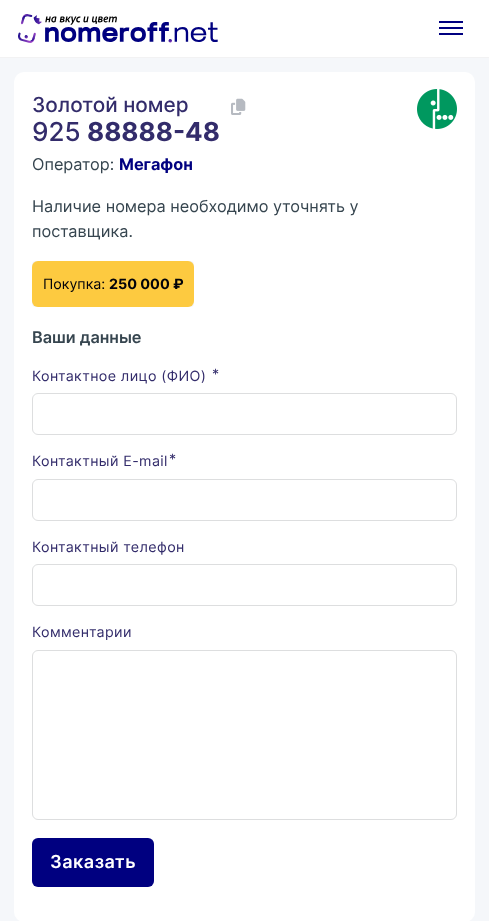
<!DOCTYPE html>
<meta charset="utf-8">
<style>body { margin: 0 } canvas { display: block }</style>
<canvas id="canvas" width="489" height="921"></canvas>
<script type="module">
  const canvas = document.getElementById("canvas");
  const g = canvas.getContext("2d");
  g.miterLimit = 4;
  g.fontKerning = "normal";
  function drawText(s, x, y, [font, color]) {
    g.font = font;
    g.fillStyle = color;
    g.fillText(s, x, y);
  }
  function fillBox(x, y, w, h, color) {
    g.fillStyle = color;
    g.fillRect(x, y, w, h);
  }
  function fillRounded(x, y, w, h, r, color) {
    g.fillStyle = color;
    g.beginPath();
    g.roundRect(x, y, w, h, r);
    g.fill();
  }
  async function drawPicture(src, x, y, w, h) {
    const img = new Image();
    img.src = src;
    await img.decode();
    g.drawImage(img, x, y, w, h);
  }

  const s1 = ["500 20.75px Inter", "#332C6B"];
  const s2 = ["500 26px Inter", "#332C6B"];
  const s3 = ["bold 26px Inter", "#332C6B"];
  const s4 = ["16.3px Inter", "#36454F"];
  const s5 = ["bold 16.3px Inter", "#000080"];
  const s6 = ["14.25px Inter", "#02030A"];
  const s7 = ["bold 14.25px Inter", "#02030A"];
  const s8 = ["600 16.3px Inter", "#36454F"];
  const s9 = ["14.25px Inter", "#332C6B"];
  const s10 = ["600 18px Inter", "#FFFFFF"];

  fillBox(0, 0, 489, 921, "#F5F7FA");
  fillBox(0, 0, 489, 57, "#FFFFFF");
  fillBox(0, 57, 489, 1, "#F2F2F3");
  await drawPicture("pic1.png", 18, 14, 200, 29);
  fillBox(439, 27, 24, 2, "#000080");
  fillBox(439, 21, 24, 2, "#000080");
  fillBox(439, 33, 24, 2, "#000080");
  fillRounded(14, 72, 461, 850, 10, "#FFFFFF");
  drawText("Золотой номер", 32, 112, s1);
  drawText("925", 32, 141, s2);
  drawText("88888-48", 87, 141, s3);
  await drawPicture("pic2.png", 231, 98, 15, 17);
  drawText("Оператор:", 32, 170, s4);
  drawText("Мегафон", 119, 170, s5);
  await drawPicture("pic3.png", 417, 89, 40, 40);
  drawText("Наличие номера необходимо уточнять у", 32, 212, s4);
  drawText("поставщика.", 32, 237, s4);
  fillRounded(32, 261, 162, 46, 4, "#F2F2F3");
  fillRounded(32, 261, 162, 46, 6, "#FDCA40");
  drawText("Покупка:", 43, 289, s6);
  drawText("250 000 ₽", 109, 289, s7);
  drawText("Ваши данные", 32, 343, s8);
  g.letterSpacing = "0.4px";
  drawText("Контактное лицо (ФИО)", 32, 381, s9);
  drawText("*", 212, 379, s9);
  g.beginPath();
  g.roundRect(32.5, 393.5, 424, 41, 5.5);
  g.strokeStyle = "#DDDEDF";
  g.stroke();
  drawText("Контактный E-mail", 32, 466, s9);
  drawText("*", 169, 464, s9);
  g.beginPath();
  g.roundRect(32.5, 479.5, 424, 41, 5.5);
  g.stroke();
  drawText("Контактный телефон", 32, 552, s9);
  g.beginPath();
  g.roundRect(32.5, 564.5, 424, 41, 5.5);
  g.stroke();
  drawText("Комментарии", 32, 637, s9);
  g.beginPath();
  g.roundRect(32.5, 650.5, 424, 169, 5.5);
  g.stroke();
  fillRounded(32, 838, 122, 49, 6, "#000080");
  g.letterSpacing = "0.5px";
  drawText("Заказать", 50, 868, s10);
</script>
